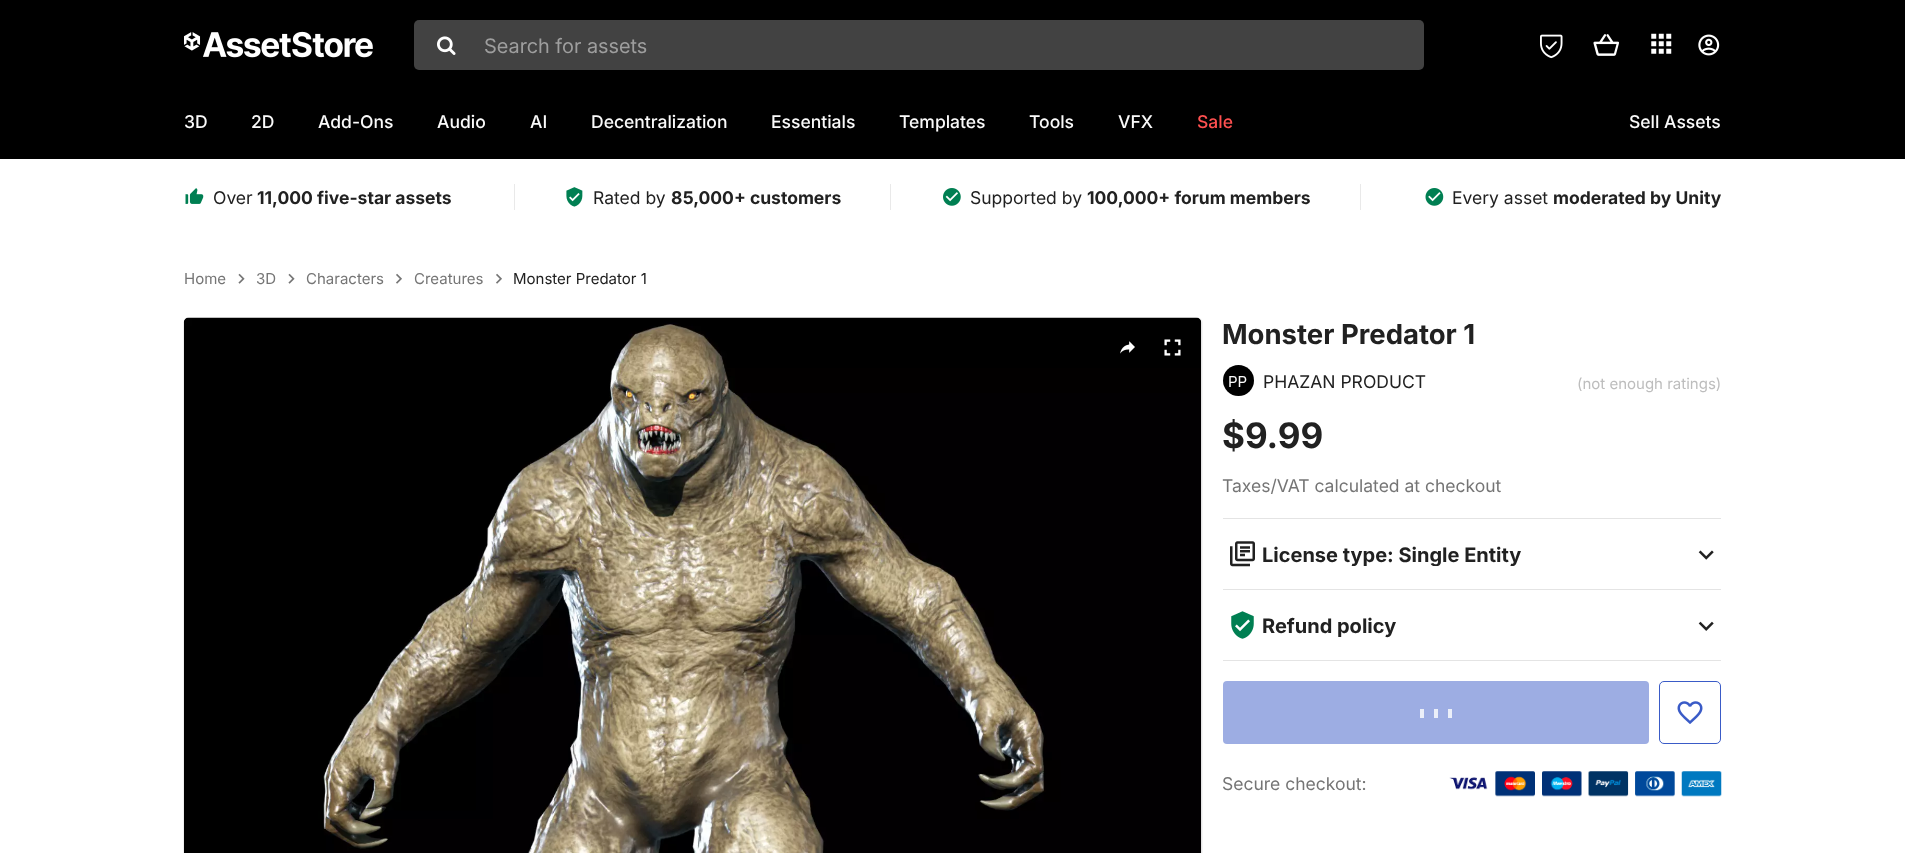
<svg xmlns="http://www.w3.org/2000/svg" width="1905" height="853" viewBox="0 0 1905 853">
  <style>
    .t1 { font: 20px 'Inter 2'; fill: #9e9e9e; }
    .t2 { font: 500 17.5px Inter; fill: #fafafa; }
    .t3 { font: 500 17.5px Inter; fill: #ff5050; }
    .t4 { font: 17.5px Inter; fill: #212121; }
    .t5 { font: bold 17.5px Inter; fill: #212121; }
    .t6 { font: 15px Inter; fill: #757575; }
    .t7 { font: 15px Inter; fill: #212121; }
    .t8 { font: bold 27.5px Inter; fill: #212121; }
    .t9 { font: 15px Inter; fill: #fafafa; }
    .t10 { font: 15px Inter; fill: #bdbdbd; }
    .t11 { font: bold 35px Inter; fill: #212121; }
    .t12 { font: 17.5px Inter; fill: #757575; }
    .t13 { font: bold 20px Inter; fill: #212121; }
  </style>
  <defs>
    <clipPath id="clip1"><rect x="1263" y="541" width="428" height="25"/></clipPath>
  </defs>
  <rect width="100%" height="100%" fill="#fff"/>
  <rect x="0" y="0" width="1905" height="159" fill="#000"/>
  <image x="184" y="31" width="189" height="27" href="images/1.png"/>
  <rect x="414" y="20" width="1010" height="50" rx="5" fill="#424242"/>
  <image x="437" y="36" width="19" height="19" href="images/2.png"/>
  <text x="484" y="53" class="t1">Search for assets</text>
  <image x="1540" y="34" width="23" height="25" href="images/3.png"/>
  <image x="1593" y="34" width="26" height="22" href="images/4.png"/>
  <image x="1651" y="33" width="21" height="21" href="images/5.png"/>
  <image x="1698" y="34" width="22" height="22" href="images/6.png"/>
  <text x="184" y="128" class="t2">3D</text>
  <text x="251" y="128" class="t2">2D</text>
  <text x="318" y="128" class="t2">Add-Ons</text>
  <text x="437" y="128" class="t2">Audio</text>
  <text x="530" y="128" class="t2">AI</text>
  <text x="591" y="128" class="t2">Decentralization</text>
  <text x="771" y="128" class="t2">Essentials</text>
  <text x="899" y="128" class="t2">Templates</text>
  <text x="1029" y="128" class="t2">Tools</text>
  <text x="1118" y="128" class="t2">VFX</text>
  <text x="1197" y="128" class="t3">Sale</text>
  <text x="1629" y="128" class="t2">Sell Assets</text>
  <image x="185" y="188" width="19" height="16" href="images/7.png"/>
  <text x="213" y="204" class="t4">Over</text>
  <text x="257" y="204" class="t5">11,000 five-star assets</text>
  <rect x="890" y="184" width="1" height="26" fill="#e9e9e9"/>
  <rect x="514" y="184" width="1" height="26" fill="#e9e9e9"/>
  <image x="566" y="187" width="17" height="20" href="images/8.png"/>
  <text x="593" y="204" class="t4">Rated by</text>
  <text x="671" y="204" class="t5">85,000+ customers</text>
  <rect x="1360" y="184" width="1" height="26" fill="#e9e9e9"/>
  <image x="943" y="188" width="18" height="18" href="images/9.png"/>
  <text x="970" y="204" class="t4">Supported by</text>
  <text x="1087" y="204" class="t5">100,000+ forum members</text>
  <image x="1425" y="188" width="19" height="18" href="images/10.png"/>
  <text x="1452" y="204" class="t4">Every asset</text>
  <text x="1553" y="204" class="t5">moderated by Unity</text>
  <text x="184" y="284" class="t6">Home</text>
  <image x="238" y="273" width="7" height="11" href="images/11.png"/>
  <text x="256" y="284" class="t6">3D</text>
  <image x="288" y="273" width="7" height="11" href="images/11.png"/>
  <text x="306" y="284" class="t6">Characters</text>
  <image x="396" y="273" width="6" height="11" href="images/12.png"/>
  <text x="414" y="284" class="t6">Creatures</text>
  <image x="496" y="273" width="6" height="11" href="images/12.png"/>
  <text x="513" y="284" class="t7">Monster Predator 1</text>
  <path d="M189 318H1198C1201 318 1203 320 1203 323V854H184V323C184 320 186 318 189 318Z" fill="#f5f5f5"/>
  <image x="183" y="317" width="1019" height="536" href="images/13.png"/>
  <image x="1120" y="341" width="15" height="13" href="images/14.png"/>
  <image x="1164" y="339" width="17" height="17" href="images/15.png"/>
  <text x="1222" y="344" class="t8">Monster Predator 1</text>
  <circle cx="1238.5" cy="380.5" r="15.5" fill="#000"/>
  <text x="1228" y="387" class="t9">PP</text>
  <text x="1263" y="388" class="t4">PHAZAN PRODUCT</text>
  <text x="1577" y="389" class="t10">(not enough ratings)</text>
  <text x="1222" y="448" class="t11">$9.99</text>
  <text x="1222" y="492" class="t12">Taxes/VAT calculated at checkout</text>
  <rect x="1223" y="518" width="498" height="1" fill="#e4e4e4"/>
  <image x="1230" y="541" width="25" height="26" href="images/16.png"/>
  <g clip-path="url(#clip1)">
    <text x="1262" y="562" class="t13">License type: Single Entity</text>
  </g>
  <image x="1698" y="550" width="16" height="10" href="images/17.png"/>
  <rect x="1223" y="589" width="498" height="1" fill="#e4e4e4"/>
  <rect x="1223" y="660" width="498" height="1" fill="#e4e4e4"/>
  <image x="1231" y="611" width="23" height="28" href="images/18.png"/>
  <text x="1262" y="633" class="t13">Refund policy</text>
  <image x="1698" y="621" width="16" height="10" href="images/19.png"/>
  <rect x="1223" y="681" width="426" height="63" rx="4" fill="#9dade3"/>
  <rect x="1420" y="709" width="4" height="9" fill="#ebeff9"/>
  <rect x="1434" y="709" width="4" height="9" fill="#ebeff9"/>
  <rect x="1448" y="709" width="4" height="9" fill="#ebeff9"/>
  <rect x="1659.5" y="681.5" width="61" height="62" rx="4.5" fill="none" stroke="#3a5bc7"/>
  <image x="1677" y="701" width="26" height="23" href="images/20.png"/>
  <text x="1222" y="790" class="t12">Secure checkout:</text>
  <image x="1449" y="771" width="273" height="26" href="images/21.png"/>
</svg>
